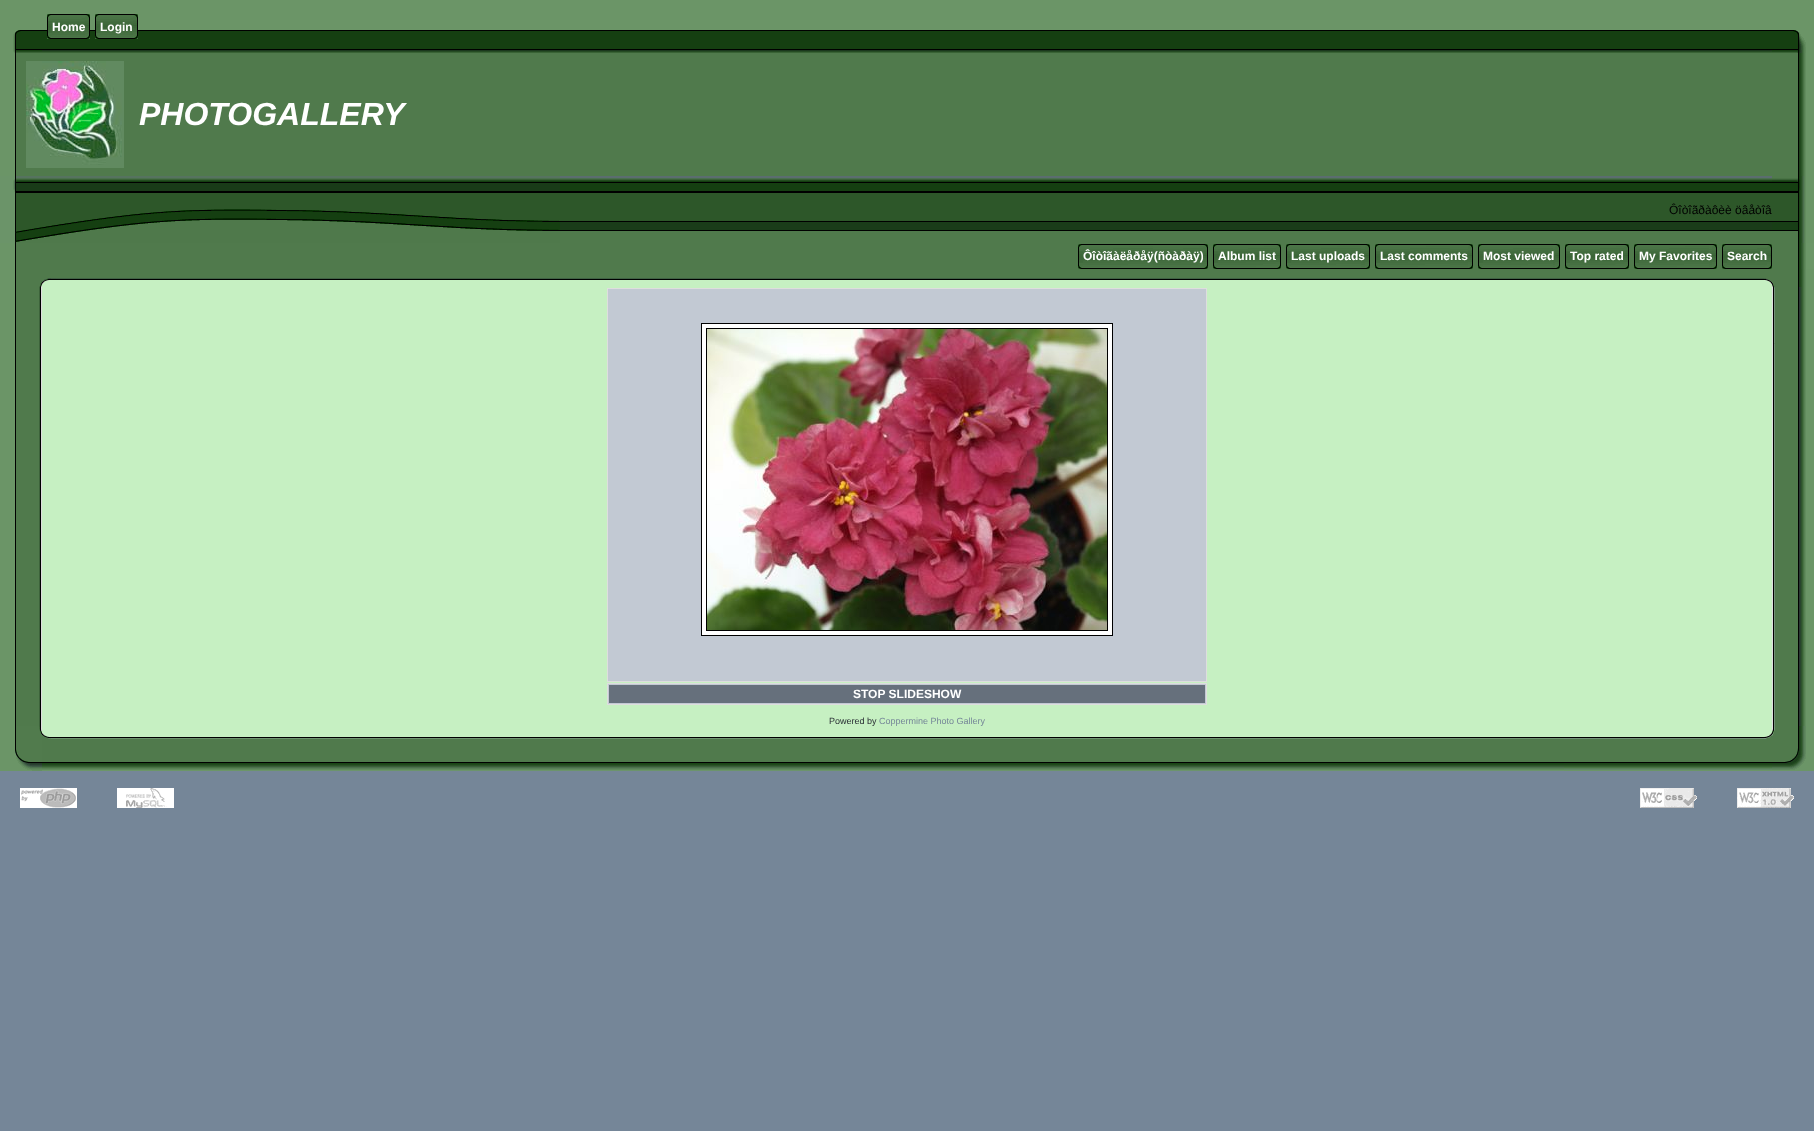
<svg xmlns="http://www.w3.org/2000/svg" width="1814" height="1131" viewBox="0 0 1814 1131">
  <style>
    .t1 { font: bold 12px Liberation Sans; fill: #fff; }
    .t2 { font: italic bold 32px Liberation Sans; fill: #fff; }
    .t3 { font: 12px Liberation Sans; fill: #000; }
    .t4 { font: 9px Liberation Sans; fill: #292e34; }
    .t5 { font: 9px Liberation Sans; fill: #758698; }
  </style>
  <rect width="100%" height="100%" fill="#758698"/>
  <image x="0" y="0" width="42" height="53" href="images/1.png"/>
  <image x="42" y="0" width="1730" height="53" href="images/2.png"/>
  <image x="47" y="14" width="5" height="25" href="images/3.png"/>
  <image x="52" y="14" width="33" height="25" href="images/4.png"/>
  <text x="52" y="31" class="t1">Home</text>
  <image x="85" y="14" width="5" height="25" href="images/5.png"/>
  <image x="95" y="14" width="5" height="25" href="images/3.png"/>
  <image x="100" y="14" width="33" height="25" href="images/6.png"/>
  <text x="100" y="31" class="t1">Login</text>
  <image x="133" y="14" width="5" height="25" href="images/5.png"/>
  <image x="1772" y="0" width="42" height="53" href="images/7.png"/>
  <image x="0" y="53" width="18" height="123" href="images/8.png"/>
  <rect x="18" y="53" width="1780" height="123" fill="#507a4c"/>
  <image x="26" y="61" width="98" height="107" href="images/9.png"/>
  <text x="139" y="125" class="t2">PHOTOGALLERY</text>
  <image x="1798" y="53" width="16" height="123" href="images/10.png"/>
  <image x="0" y="176" width="560" height="67" href="images/11.png"/>
  <image x="560" y="176" width="1212" height="67" href="images/12.png"/>
  <text x="1669" y="214" class="t3">Ôîòîãðàôèè öâåòîâ</text>
  <image x="1772" y="176" width="42" height="67" href="images/13.png"/>
  <image x="0" y="243" width="42" height="26" href="images/14.png"/>
  <rect x="42" y="243" width="1730" height="26" fill="#507a4c"/>
  <image x="1078" y="244" width="5" height="25" href="images/3.png"/>
  <image x="1083" y="244" width="120" height="25" href="images/15.png"/>
  <text x="1083" y="260" class="t1">Ôîòîãàëåðåÿ(ñòàðàÿ)</text>
  <image x="1203" y="244" width="5" height="25" href="images/5.png"/>
  <image x="1213" y="244" width="5" height="25" href="images/3.png"/>
  <image x="1218" y="244" width="58" height="25" href="images/16.png"/>
  <text x="1218" y="260" class="t1">Album list</text>
  <image x="1276" y="244" width="5" height="25" href="images/5.png"/>
  <image x="1286" y="244" width="5" height="25" href="images/3.png"/>
  <image x="1291" y="244" width="74" height="25" href="images/17.png"/>
  <text x="1291" y="260" class="t1">Last uploads</text>
  <image x="1365" y="244" width="5" height="25" href="images/5.png"/>
  <image x="1375" y="244" width="5" height="25" href="images/3.png"/>
  <image x="1380" y="244" width="88" height="25" href="images/18.png"/>
  <text x="1380" y="260" class="t1">Last comments</text>
  <image x="1468" y="244" width="5" height="25" href="images/5.png"/>
  <image x="1478" y="244" width="5" height="25" href="images/3.png"/>
  <image x="1483" y="244" width="72" height="25" href="images/19.png"/>
  <text x="1483" y="260" class="t1">Most viewed</text>
  <image x="1555" y="244" width="5" height="25" href="images/5.png"/>
  <image x="1565" y="244" width="5" height="25" href="images/3.png"/>
  <image x="1570" y="244" width="54" height="25" href="images/20.png"/>
  <text x="1570" y="260" class="t1">Top rated</text>
  <image x="1624" y="244" width="5" height="25" href="images/5.png"/>
  <image x="1634" y="244" width="5" height="25" href="images/3.png"/>
  <image x="1639" y="244" width="73" height="25" href="images/21.png"/>
  <text x="1639" y="260" class="t1">My Favorites</text>
  <image x="1712" y="244" width="5" height="25" href="images/5.png"/>
  <image x="1722" y="244" width="5" height="25" href="images/3.png"/>
  <image x="1727" y="244" width="40" height="25" href="images/22.png"/>
  <text x="1727" y="260" class="t1">Search</text>
  <image x="1767" y="244" width="5" height="25" href="images/5.png"/>
  <image x="1772" y="243" width="42" height="26" href="images/23.png"/>
  <image x="0" y="269" width="42" height="18" href="images/24.png"/>
  <image x="42" y="269" width="14" height="18" href="images/25.png"/>
  <image x="56" y="269" width="1702" height="18" href="images/26.png"/>
  <image x="1758" y="269" width="14" height="18" href="images/27.png"/>
  <image x="1772" y="269" width="42" height="18" href="images/28.png"/>
  <image x="0" y="287" width="42" height="439" href="images/29.png"/>
  <rect x="42" y="287" width="1730" height="439" fill="#c6f0c2"/>
  <rect x="607.5" y="288.5" width="599" height="393" fill="#c2c9d3" stroke="#dedede"/>
  <rect x="701.5" y="323.5" width="411" height="312" fill="#fff" stroke="#000"/>
  <rect x="706.5" y="328.5" width="401" height="302" fill="none" stroke="#000"/>
  <image x="707" y="329" width="400" height="301" href="images/30.png"/>
  <rect x="607.5" y="683.5" width="599" height="21" fill="#c2c9d3" stroke="#dedede"/>
  <rect x="609" y="685" width="596" height="18" fill="#66707c"/>
  <text x="853" y="698" class="t1">STOP SLIDESHOW</text>
  <text x="829" y="724" class="t4">Powered by</text>
  <text x="879" y="724" class="t5">Coppermine Photo Gallery</text>
  <image x="1772" y="287" width="42" height="439" href="images/31.png"/>
  <image x="1774" y="343" width="1" height="273" href="images/32.png"/>
  <image x="0" y="726" width="42" height="45" href="images/33.png"/>
  <image x="42" y="726" width="208" height="45" href="images/34.png"/>
  <image x="250" y="726" width="1314" height="45" href="images/35.png"/>
  <image x="1564" y="726" width="208" height="45" href="images/36.png"/>
  <image x="1772" y="726" width="42" height="45" href="images/37.png"/>
  <image x="20" y="788" width="57" height="20" href="images/38.png"/>
  <image x="117" y="788" width="57" height="20" href="images/39.png"/>
  <image x="1640" y="788" width="57" height="20" href="images/40.png"/>
  <image x="1737" y="788" width="57" height="20" href="images/41.png"/>
</svg>
